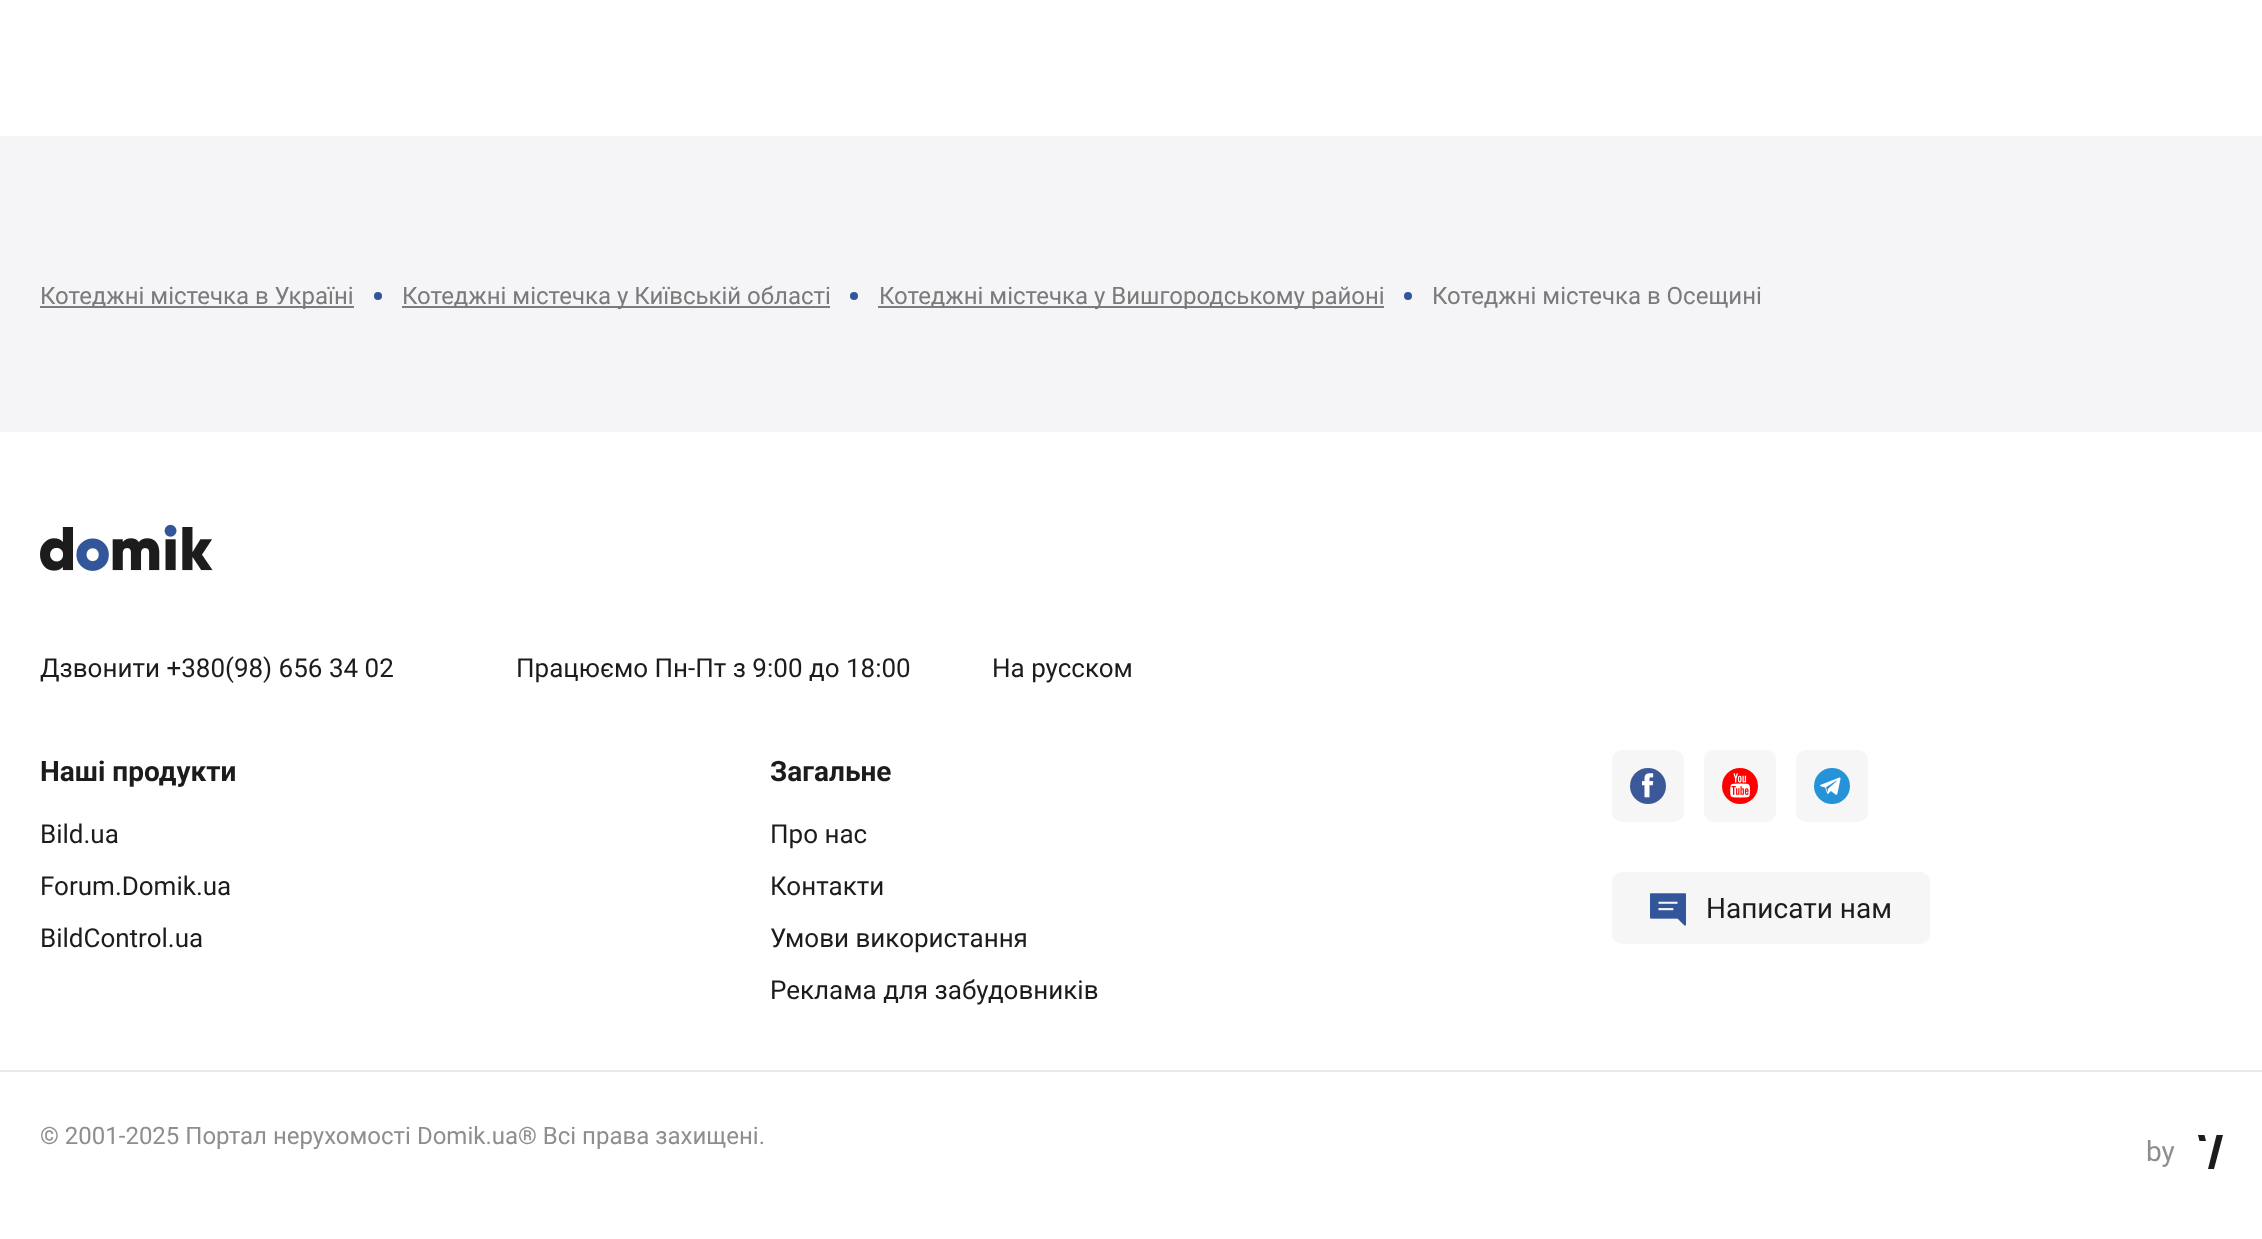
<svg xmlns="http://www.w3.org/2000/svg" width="2262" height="1239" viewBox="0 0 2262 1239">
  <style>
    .t1 { font: 24px Roboto; fill: #7a7a7b; }
    .t2 { font: 26px Roboto; fill: #1c1c1c; }
    .t3 { font: bold 28px Roboto; fill: #1c1c1c; }
    .t4 { font: 28px Roboto; fill: #1c1c1c; }
    .t5 { font: 24px Roboto; fill: #8e8e8e; }
    .t6 { font: 28px Roboto; fill: #8e8e8e; }
  </style>
  <rect width="100%" height="100%" fill="#f5f5f7"/>
  <rect x="0" y="0" width="2262" height="136" fill="#fff"/>
  <rect x="40" y="306" width="314" height="2" fill="#7b7b7c"/>
  <text x="40" y="304" class="t1">Котеджні містечка в Україні</text>
  <circle cx="378" cy="296" r="4" fill="#359"/>
  <rect x="402" y="306" width="428" height="2" fill="#7b7b7c"/>
  <text x="402" y="304" class="t1">Котеджні містечка у Київській області</text>
  <circle cx="854" cy="296" r="4" fill="#359"/>
  <rect x="878" y="306" width="506" height="2" fill="#7b7b7c"/>
  <text x="879" y="304" class="t1">Котеджні містечка у Вишгородському районі</text>
  <circle cx="1408" cy="296" r="4" fill="#359"/>
  <text x="1432" y="304" class="t1">Котеджні містечка в Осещині</text>
  <rect x="0" y="432" width="2262" height="807" fill="#fff"/>
  <image x="40" y="527" width="173" height="44" href="images/2.png"/>
  <image x="164" y="524" width="13" height="13" href="images/1.png"/>
  <image x="76" y="538" width="33" height="33" href="images/3.png"/>
  <text x="40" y="677" class="t2">Дзвонити +380(98) 656 34 02</text>
  <text x="516" y="677" class="t2">Працюємо Пн-Пт з 9:00 до 18:00</text>
  <text x="992" y="677" class="t2">На русском</text>
  <text x="40" y="781" class="t3">Наші продукти</text>
  <text x="40" y="843" class="t2">Bild.ua</text>
  <text x="40" y="895" class="t2">Forum.Domik.ua</text>
  <text x="40" y="947" class="t2">BildControl.ua</text>
  <text x="770" y="781" class="t3">Загальне</text>
  <text x="770" y="843" class="t2">Про нас</text>
  <text x="770" y="895" class="t2">Контакти</text>
  <text x="770" y="947" class="t2">Умови використання</text>
  <text x="770" y="999" class="t2">Реклама для забудовників</text>
  <rect x="1612" y="750" width="72" height="72" rx="10" fill="#f6f6f6"/>
  <circle cx="1648" cy="786" r="18" fill="#3b5998"/>
  <image x="1642" y="773" width="12" height="25" href="images/4.png"/>
  <rect x="1704" y="750" width="72" height="72" rx="10" fill="#f6f6f6"/>
  <circle cx="1740" cy="786" r="18" fill="#f00"/>
  <image x="1730" y="773" width="20" height="25" href="images/5.png"/>
  <rect x="1796" y="750" width="72" height="72" rx="10" fill="#f6f6f6"/>
  <circle cx="1832" cy="786" r="18" fill="#2693d8"/>
  <image x="1820" y="777" width="21" height="18" href="images/6.png"/>
  <rect x="1612" y="872" width="318" height="72" rx="10" fill="#f6f6f6"/>
  <image x="1650" y="893" width="36" height="33" href="images/7.png"/>
  <text x="1706" y="918" class="t4">Написати нам</text>
  <rect x="0" y="1070" width="2262" height="2" fill="#e8e8e8"/>
  <text x="40" y="1144" class="t5">© 2001-2025 Портал нерухомості Domik.ua® Всі права захищені.</text>
  <text x="2146" y="1161" class="t6">by</text>
  <path d="M2198 1135L2199.5 1141H2206L2204.5 1135ZM2216.5 1135L2208 1169H2214L2223 1135Z" fill="#1c1c1c"/>
</svg>
